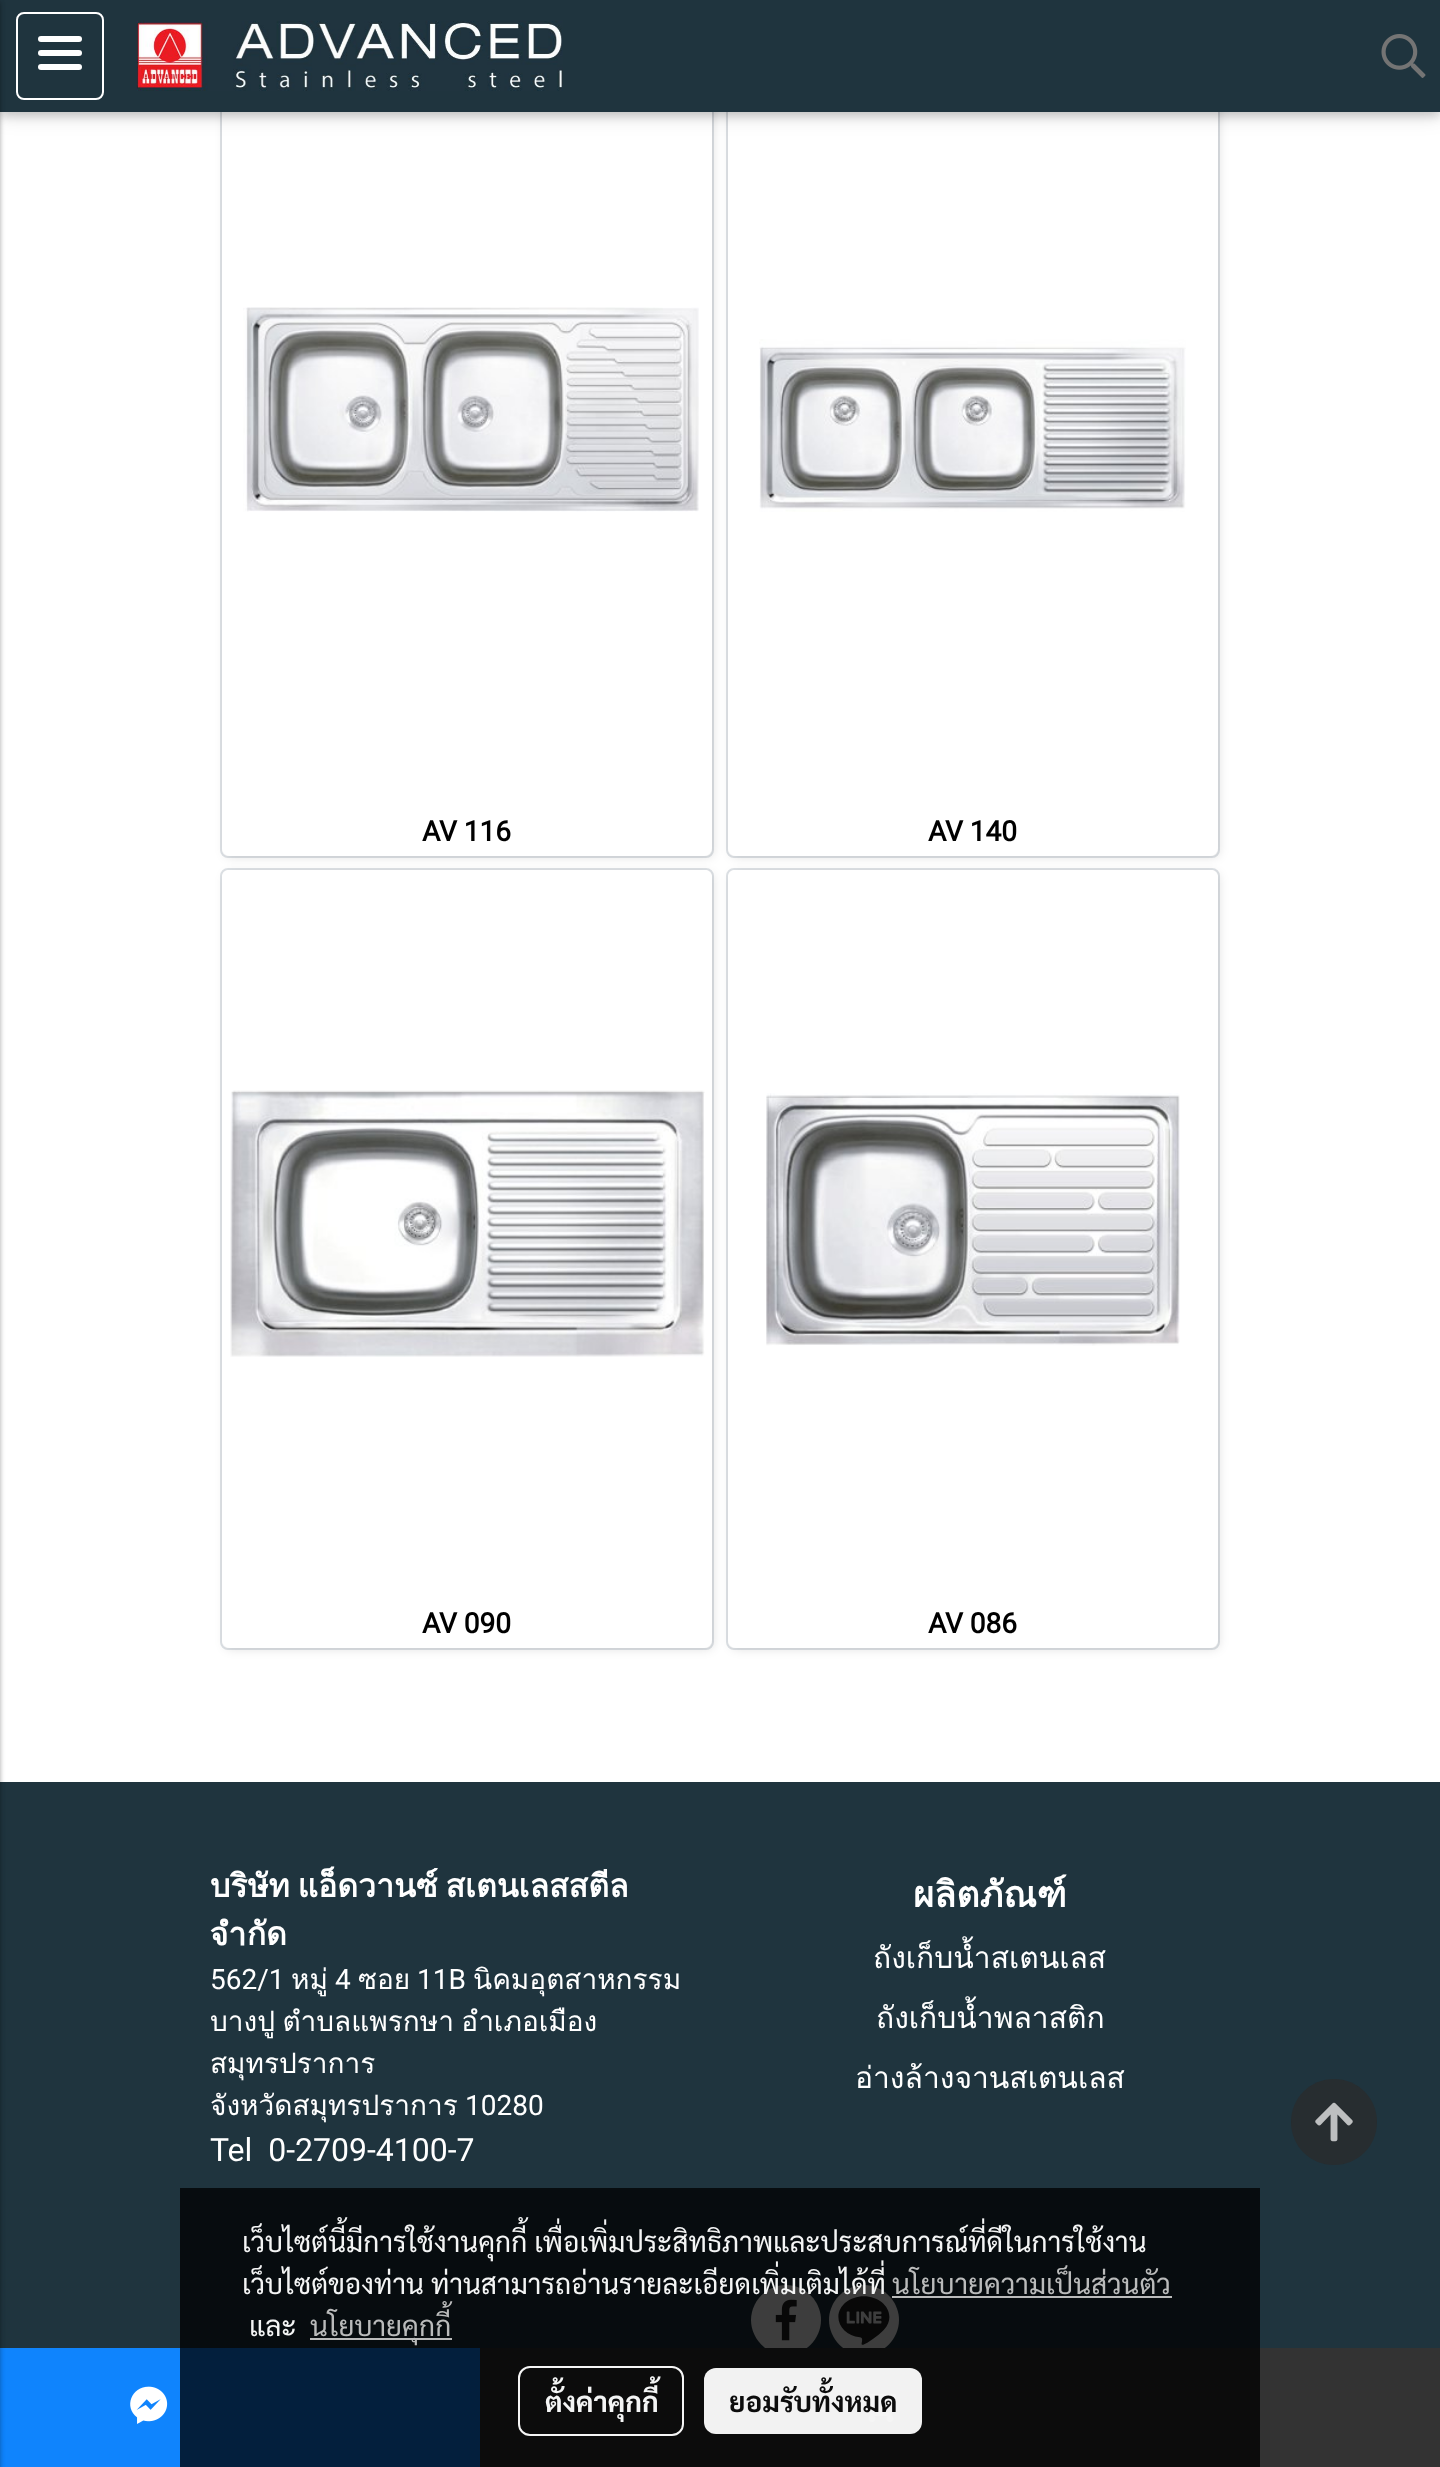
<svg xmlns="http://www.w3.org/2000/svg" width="1440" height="2467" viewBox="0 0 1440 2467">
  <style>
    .t1 { font: bold 28px Roboto; fill: #000; }
    .t2 { font: bold 32px Loma; fill: #fff; }
    .t3 { font: 28px Roboto; fill: #fff; }
    .t4 { font: 28px Loma; fill: #fff; }
    .t5 { font: 32px Roboto; fill: #fff; }
    .t6 { font: bold 36px Loma; fill: #fff; }
    .t7 { font: 30px Loma; fill: #fff; }
    .t8 { font: 28px Sarabun; fill: #f4f5f5; }
    .t9 { font: 28px Sarabun; fill: #babbbb; }
    .t10 { font: bold 28px Sarabun; fill: #f4f5f5; }
    .t11 { font: bold 28px Sarabun; fill: #0c0c0c; }
  </style>
  <rect width="100%" height="100%" fill="#fff"/>
  <rect x="221" y="77" width="492" height="780" rx="7" fill="none" stroke="#dee2e6" stroke-width="2"/>
  <rect x="224" y="80" width="490" height="778" rx="8" fill="#0000001a" filter="blur(5px)"/>
  <rect x="222" y="78" width="490" height="778" rx="8" fill="#fff"/>
  <rect x="727" y="77" width="492" height="780" rx="7" fill="none" stroke="#dee2e6" stroke-width="2"/>
  <rect x="730" y="80" width="490" height="778" rx="8" fill="#0000001a" filter="blur(5px)"/>
  <rect x="728" y="78" width="490" height="778" rx="8" fill="#fff"/>
  <rect x="0" y="4" width="1440" height="112" fill="#0000001f" filter="blur(10px)"/>
  <rect x="0" y="4" width="1440" height="112" fill="#00000029" filter="blur(5px)"/>
  <rect x="0" y="0" width="1440" height="112" fill="#1f343e"/>
  <rect x="0" y="2348" width="480" height="119" fill="#0f84fd"/>
  <rect x="0" y="1782" width="1440" height="566" fill="#1f343e"/>
  <rect x="-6" y="2" width="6" height="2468" fill="#0000003d" filter="blur(2px)"/>
  <rect x="-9" y="2" width="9" height="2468" fill="#0000001f" filter="blur(3px)"/>
  <rect x="17" y="13" width="86" height="86" rx="7" fill="none" stroke="#fff" stroke-width="2"/>
  <rect x="38" y="50" width="44" height="6" rx="3" fill="#fff"/>
  <rect x="38" y="36" width="44" height="6" rx="3" fill="#fff"/>
  <rect x="38" y="64" width="44" height="6" rx="3" fill="#fff"/>
  <image x="136" y="20" width="427" height="71" href="images/1.png"/>
  <image x="1381" y="34" width="45" height="44" href="images/2.png"/>
  <image x="243" y="307" width="456" height="205" href="images/3.png"/>
  <text x="422" y="841" class="t1">AV 116</text>
  <image x="759" y="339" width="427" height="173" href="images/4.png"/>
  <text x="928" y="841" class="t1">AV 140</text>
  <rect x="221" y="869" width="492" height="780" rx="7" fill="none" stroke="#dee2e6" stroke-width="2"/>
  <rect x="224" y="872" width="490" height="778" rx="8" fill="#0000001a" filter="blur(5px)"/>
  <rect x="222" y="870" width="490" height="778" rx="8" fill="#fff"/>
  <path d="M230 870H704C708.5 870 712 873.5 712 878V1574H222V878C222 873.5 225.5 870 230 870Z" fill="#fff"/>
  <image x="230" y="1090" width="475" height="267" href="images/5.png"/>
  <text x="422" y="1633" class="t1">AV 090</text>
  <rect x="727" y="869" width="492" height="780" rx="7" fill="none" stroke="#dee2e6" stroke-width="2"/>
  <rect x="730" y="872" width="490" height="778" rx="8" fill="#0000001a" filter="blur(5px)"/>
  <rect x="728" y="870" width="490" height="778" rx="8" fill="#fff"/>
  <path d="M736 870H1210C1214.5 870 1218 873.5 1218 878V1574H728V878C728 873.5 731.5 870 736 870Z" fill="#fff"/>
  <image x="766" y="1093" width="414" height="253" href="images/6.png"/>
  <text x="928" y="1633" class="t1">AV 086</text>
  <image x="130" y="2386" width="38" height="38" href="images/7.png"/>
  <path d="M786 2285C767 2285 751 2301 751 2320C751 2339 767 2355 786 2355C805 2355 821 2339 821 2320C821 2301 805 2285 786 2285Z" fill="#fff"/>
  <path d="M864 2285C845 2285 829 2301 829 2320C829 2339 845 2355 864 2355C883 2355 899 2339 899 2320C899 2301 883 2285 864 2285Z" fill="#fff"/>
  <rect x="480" y="2348" width="960" height="119" fill="#333"/>
  <image x="860" y="2390" width="36" height="32" href="images/8.png"/>
  <text x="210" y="1897" word-spacing="-3" class="t2">บริษัท แอ็ดวานซ์ สเตนเลสสตีล</text>
  <text x="210" y="1945" class="t2">จำกัด</text>
  <text x="210" y="1989" class="t3">562/1</text>
  <text x="291" y="1989" class="t4">หมู่</text>
  <text x="335" y="1989" class="t3">4</text>
  <text x="358" y="1989" class="t4">ซอย</text>
  <text x="417" y="1989" class="t3">11B</text>
  <text x="473" y="1989" class="t4">นิคมอุตสาหกรรม</text>
  <text x="210" y="2031" word-spacing="-2" class="t4">บางปู ตำบลแพรกษา อำเภอเมือง</text>
  <text x="210" y="2073" class="t4">สมุทรปราการ</text>
  <text x="210" y="2115" class="t4">จังหวัดสมุทรปราการ</text>
  <text x="465" y="2115" class="t3">10280</text>
  <text x="210" y="2161" class="t5" xml:space="preserve">Tel  0-2709-4100-7</text>
  <text x="913" y="1907" class="t6">ผลิตภัณฑ์</text>
  <text x="873" y="1968" class="t7">ถังเก็บน้ำสเตนเลส</text>
  <text x="876" y="2028" class="t7">ถังเก็บน้ำพลาสติก</text>
  <text x="855" y="2088" class="t7">อ่างล้างจานสเตนเลส</text>
  <image x="775" y="2299" width="22" height="42" href="images/9.png"/>
  <image x="838" y="2296" width="52" height="49" href="images/10.png"/>
  <path d="M1334 2079C1310 2079 1291 2098 1291 2122C1291 2146 1310 2165 1334 2165C1358 2165 1377 2146 1377 2122C1377 2098 1358 2079 1334 2079Z" fill="#272d30"/>
  <image x="1315" y="2102" width="38" height="40" href="images/11.png"/>
  <rect x="180" y="2188" width="1080" height="279" fill="#000000c2"/>
  <text x="242" y="2252" class="t8">เว็บไซต์นี้มีการใช้งานคุกกี้ เพื่อเพิ่มประสิทธิภาพและประสบการณ์ที่ดีในการใช้งาน</text>
  <text x="242" y="2294" class="t8">เว็บไซต์ของท่าน</text>
  <text x="431" y="2294" class="t8">ท่านสามารถอ่านรายละเอียดเพิ่มเติมได้ที่</text>
  <text x="892" y="2294" class="t9">นโยบายความเป็นส่วนตัว</text>
  <rect x="892" y="2296" width="280" height="2" fill="#babbbb"/>
  <text x="249" y="2336" class="t8">และ</text>
  <rect x="310" y="2338" width="142" height="2" fill="#babbbb"/>
  <text x="310" y="2336" class="t9">นโยบายคุกกี้</text>
  <rect x="519" y="2367" width="164" height="68" rx="11" fill="none" stroke="#f5f5f5" stroke-width="2"/>
  <text x="545" y="2412" class="t10">ตั้งค่าคุกกี้</text>
  <rect x="704" y="2368" width="218" height="66" rx="12" fill="#fffffff2"/>
  <text x="729" y="2412" class="t11">ยอมรับทั้งหมด</text>
</svg>
